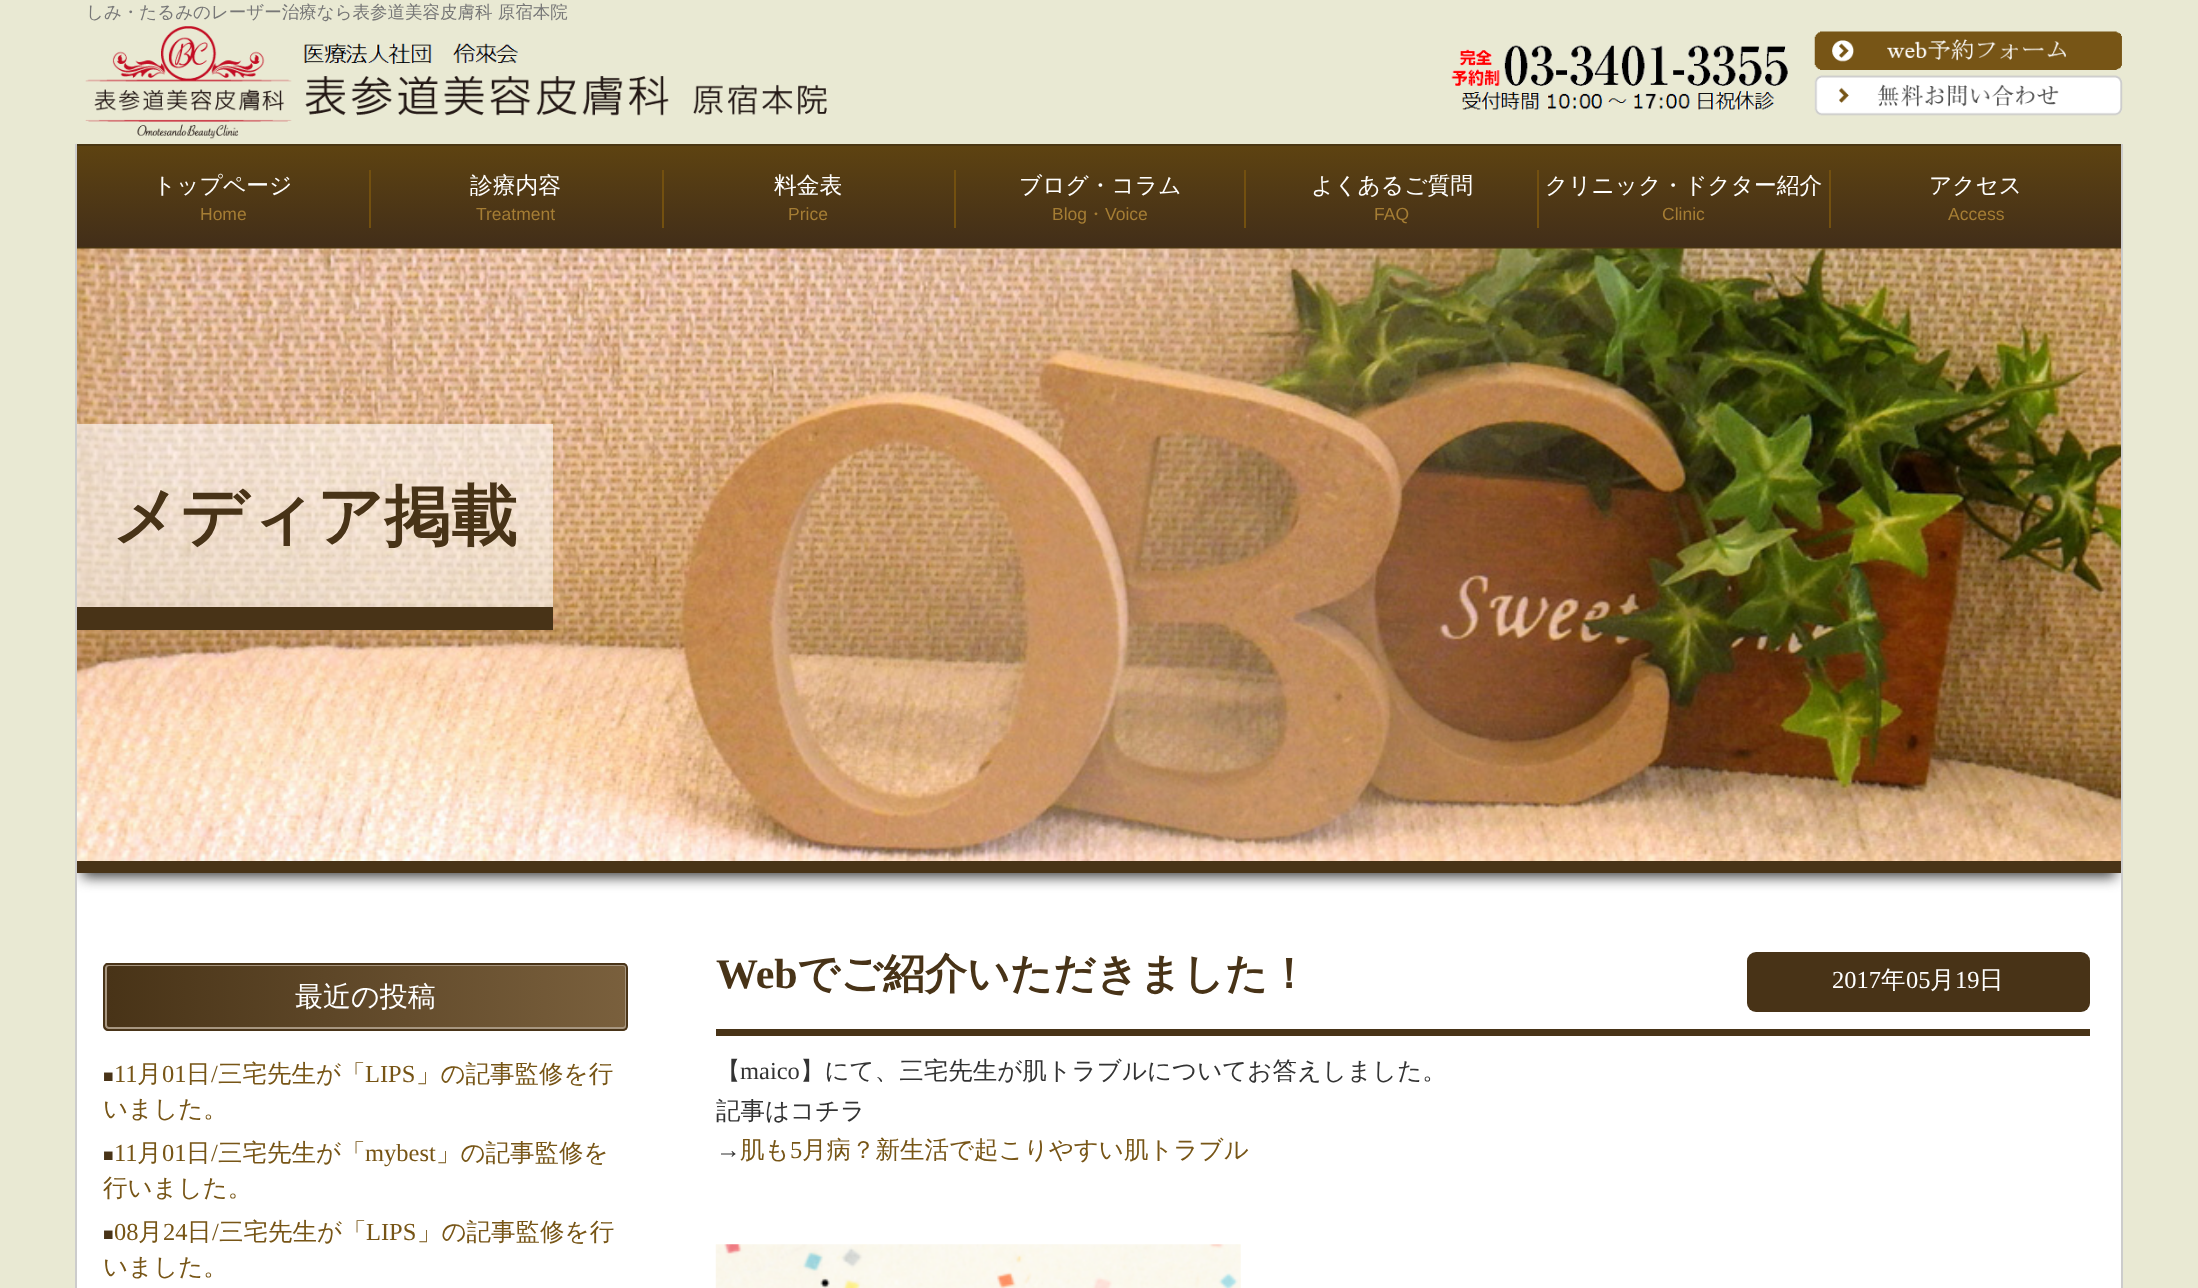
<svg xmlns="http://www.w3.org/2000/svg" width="2198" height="1288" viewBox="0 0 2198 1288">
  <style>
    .t1 { font: 500 17.5px WenQuanYi Zen Hei; fill: #777; }
    .t2 { font: 500 22.75px WenQuanYi Zen Hei; fill: #fff; }
    .t3 { font: 17.5px Liberation Sans; fill: #a57d34; }
    .t4 { font: 500 17.5px WenQuanYi Zen Hei; fill: #a57d34; }
    .t5 { font: bold 66.5px WenQuanYi Zen Hei; fill: #483317; }
    .t6 { font: 500 28px WenQuanYi Zen Hei; fill: #fff; }
    .t7 { font: 17.5px Liberation Serif; fill: #483317; }
    .t8 { font: 24.5px Liberation Serif; fill: #775516; }
    .t9 { font: 500 24.5px WenQuanYi Zen Hei; fill: #775516; }
    .t10 { font: bold 42px Liberation Serif; fill: #483317; }
    .t11 { font: bold 42px WenQuanYi Zen Hei; fill: #483317; }
    .t12 { font: 24.5px Liberation Serif; fill: #fff; }
    .t13 { font: 500 24.5px WenQuanYi Zen Hei; fill: #fff; }
    .t14 { font: 500 24.5px WenQuanYi Zen Hei; fill: #333; }
    .t15 { font: 24.5px Liberation Serif; fill: #333; }
  </style>
  <defs>
    <linearGradient id="g1" gradientUnits="userSpaceOnUse" x1="1099" y1="145" x2="1099" y2="247"><stop offset="0" stop-color="#5e4311"/><stop offset="1" stop-color="#422e19"/></linearGradient>
    <clipPath id="clip1"><rect x="77" y="144" width="2044" height="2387"/></clipPath>
    <clipPath id="clip2"><rect x="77" y="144" width="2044" height="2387"/></clipPath>
    <clipPath id="clip3"><rect x="103" y="963" width="525" height="68" rx="5"/></clipPath>
    <linearGradient id="g2" gradientUnits="userSpaceOnUse" x1="105" y1="997" x2="627" y2="997"><stop offset="0" stop-color="#483317"/><stop offset="1" stop-color="#7a603d"/></linearGradient>
  </defs>
  <rect width="100%" height="100%" fill="#e9e9d3"/>
  <text x="86" y="18" class="t1">しみ・たるみのレーザー治療なら表参道美容皮膚科 原宿本院</text>
  <image x="85" y="26" width="742" height="113" href="images/1.png"/>
  <image x="1451" y="45" width="337" height="65" href="images/2.png"/>
  <image x="1814" y="31" width="308" height="39" href="images/3.png"/>
  <image x="1814" y="75" width="309" height="41" href="images/4.png"/>
  <rect x="77" y="873" width="2044" height="415" fill="#fff"/>
  <rect x="2121" y="144" width="2" height="1144" fill="#ccc"/>
  <rect x="75" y="144" width="2" height="1144" fill="#ccc"/>
  <rect x="77" y="146" width="2044" height="101" fill="url(#g1)"/>
  <g clip-path="url(#clip1)">
    <rect x="76" y="145" width="2046" height="103" fill="none" stroke="#4a3612" stroke-width="2"/>
  </g>
  <text x="153" y="193" class="t2">トップページ</text>
  <text x="200" y="220" class="t3">Home</text>
  <rect x="369" y="170" width="2" height="58" fill="#73500f"/>
  <text x="470" y="193" class="t2">診療内容</text>
  <text x="476" y="220" class="t3">Treatment</text>
  <rect x="662" y="170" width="2" height="58" fill="#73500f"/>
  <text x="774" y="193" class="t2">料金表</text>
  <text x="788" y="220" class="t3">Price</text>
  <rect x="954" y="170" width="2" height="58" fill="#73500f"/>
  <text x="1019" y="193" class="t2">ブログ・コラム</text>
  <text x="1052" y="220" class="t3">Blog</text>
  <text x="1087" y="220" class="t4">・</text>
  <text x="1105" y="220" class="t3">Voice</text>
  <rect x="1244" y="170" width="2" height="58" fill="#73500f"/>
  <text x="1311" y="193" class="t2">よくあるご質問</text>
  <text x="1374" y="220" class="t3">FAQ</text>
  <rect x="1537" y="170" width="2" height="58" fill="#73500f"/>
  <text x="1545" y="193" class="t2">クリニック・ドクター紹介</text>
  <text x="1662" y="220" class="t3">Clinic</text>
  <rect x="1829" y="170" width="2" height="58" fill="#73500f"/>
  <text x="1929" y="193" class="t2">アクセス</text>
  <text x="1948" y="220" class="t3">Access</text>
  <g clip-path="url(#clip2)">
    <rect x="82" y="263" width="2034" height="614" fill="#3e3e3e" filter="blur(7px)"/>
  </g>
  <rect x="77" y="861" width="2044" height="12" fill="#483317"/>
  <image x="77" y="248" width="2044" height="613" href="images/5.png"/>
  <rect x="77" y="424" width="476" height="183" fill="#ffffff99"/>
  <rect x="77" y="607" width="476" height="23" fill="#483317"/>
  <text x="112" y="539" class="t5">メディア掲載</text>
  <g clip-path="url(#clip3)">
    <rect x="105" y="963" width="522" height="68" fill="url(#g2)"/>
  </g>
  <rect x="106" y="965" width="520" height="63" rx="3" fill="none" stroke="#a79680" stroke-width="2"/>
  <rect x="104" y="964" width="523" height="66" rx="4" fill="none" stroke="#493418" stroke-width="2"/>
  <text x="295" y="1006" class="t6">最近の投稿</text>
  <text x="103" y="1082" class="t7">■</text>
  <text x="114" y="1082" class="t8">11</text>
  <text x="137" y="1082" class="t9">月</text>
  <text x="162" y="1082" class="t8">01</text>
  <text x="186" y="1082" class="t9">日</text>
  <text x="211" y="1082" class="t8">/</text>
  <text x="218" y="1082" class="t9">三宅先生が「</text>
  <text x="365" y="1082" class="t8">LIPS</text>
  <text x="416" y="1082" class="t9">」の記事監修を行</text>
  <text x="103" y="1117" class="t9">いました。</text>
  <text x="103" y="1161" class="t7">■</text>
  <text x="114" y="1161" class="t8">11</text>
  <text x="137" y="1161" class="t9">月</text>
  <text x="162" y="1161" class="t8">01</text>
  <text x="186" y="1161" class="t9">日</text>
  <text x="211" y="1161" class="t8">/</text>
  <text x="218" y="1161" class="t9">三宅先生が「</text>
  <text x="365" y="1161" class="t8">mybest</text>
  <text x="436" y="1161" class="t9">」の記事監修を</text>
  <text x="103" y="1196" class="t9">行いました。</text>
  <text x="103" y="1240" class="t7">■</text>
  <text x="114" y="1240" class="t8">08</text>
  <text x="138" y="1240" class="t9">月</text>
  <text x="163" y="1240" class="t8">24</text>
  <text x="187" y="1240" class="t9">日</text>
  <text x="212" y="1240" class="t8">/</text>
  <text x="219" y="1240" class="t9">三宅先生が「</text>
  <text x="366" y="1240" class="t8">LIPS</text>
  <text x="417" y="1240" class="t9">」の記事監修を行</text>
  <text x="103" y="1275" class="t9">いました。</text>
  <rect x="716" y="1029" width="1374" height="7" fill="#483317"/>
  <text x="716" y="988" class="t10">Web</text>
  <text x="797" y="988" class="t11">でご紹介いただきました！</text>
  <rect x="1747" y="952" width="343" height="60" rx="9" fill="#483317"/>
  <text x="1832" y="988" class="t12">2017</text>
  <text x="1881" y="988" class="t13">年</text>
  <text x="1906" y="988" class="t12">05</text>
  <text x="1930" y="988" class="t13">月</text>
  <text x="1955" y="988" class="t12">19</text>
  <text x="1979" y="988" class="t13">日</text>
  <text x="716" y="1079" class="t14">【</text>
  <text x="740" y="1079" class="t15">maico</text>
  <text x="800" y="1079" class="t14">】にて、三宅先生が肌トラブルについてお答えしました。</text>
  <text x="716" y="1119" class="t14">記事はコチラ</text>
  <text x="716" y="1158" class="t15">→</text>
  <text x="740" y="1158" class="t9">肌も</text>
  <text x="790" y="1158" class="t8">5</text>
  <text x="802" y="1158" class="t9">月病？新生活で起こりやすい肌トラブル</text>
  <image x="715" y="1244" width="526" height="44" href="images/6.png"/>
</svg>
